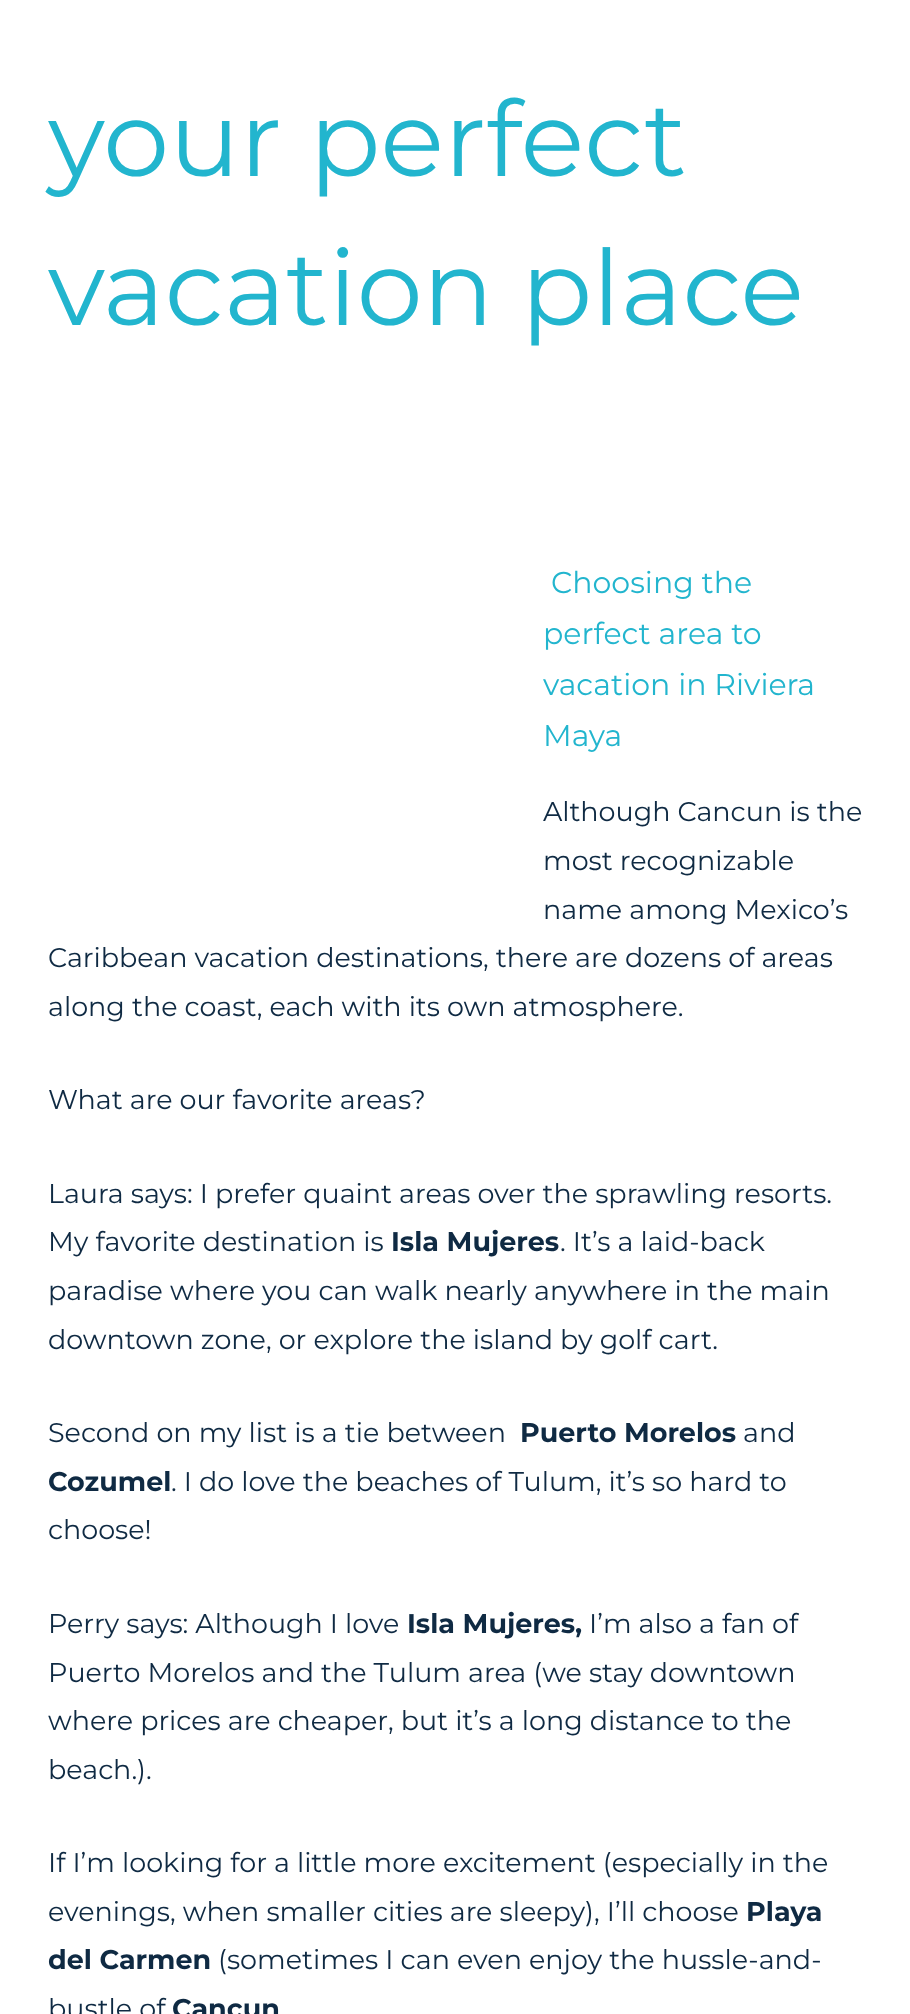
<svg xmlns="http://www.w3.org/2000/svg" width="910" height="2014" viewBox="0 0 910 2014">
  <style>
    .t1 { font: 105px Montserrat; fill: #22b5ce; }
    .t2 { font: 30px Montserrat; fill: #22b5ce; }
    .t3 { font: 27px Montserrat; fill: #0f2a43; }
    .t4 { font: bold 27px Montserrat; fill: #0f2a43; }
  </style>
  <rect width="100%" height="100%" fill="#fff"/>
  <text x="48" y="176" class="t1">your perfect</text>
  <text x="48" y="325" class="t1">vacation place</text>
  <text x="551" y="593" class="t2">Choosing the</text>
  <text x="543" y="644" class="t2">perfect area to</text>
  <text x="543" y="695" class="t2">vacation in Riviera</text>
  <text x="543" y="746" class="t2">Maya</text>
  <text x="543" y="821" class="t3">Although Cancun is the</text>
  <text x="543" y="870" class="t3">most recognizable</text>
  <text x="543" y="919" class="t3">name among Mexico’s</text>
  <text x="48" y="967" class="t3">Caribbean vacation destinations, there are dozens of areas</text>
  <text x="48" y="1016" class="t3">along the coast, each with its own atmosphere.</text>
  <text x="48" y="1109" class="t3">What are our favorite areas?</text>
  <text x="48" y="1203" class="t3">Laura says: I prefer quaint areas over the sprawling resorts.</text>
  <text x="48" y="1251" class="t3">My favorite destination is</text>
  <text x="391" y="1251" class="t4">Isla Mujeres</text>
  <text x="560" y="1251" class="t3">. It’s a laid-back</text>
  <text x="48" y="1300" class="t3">paradise where you can walk nearly anywhere in the main</text>
  <text x="48" y="1349" class="t3">downtown zone, or explore the island by golf cart.</text>
  <text x="48" y="1442" class="t3">Second on my list is a tie between</text>
  <text x="520" y="1442" class="t4">Puerto Morelos</text>
  <text x="743" y="1442" class="t3">and</text>
  <text x="48" y="1491" class="t4">Cozumel</text>
  <text x="171" y="1491" class="t3">. I do love the beaches of Tulum, it’s so hard to</text>
  <text x="48" y="1539" class="t3">choose!</text>
  <text x="48" y="1633" class="t3">Perry says: Although I love</text>
  <text x="407" y="1633" class="t4">Isla Mujeres,</text>
  <text x="589" y="1633" class="t3">I’m also a fan of</text>
  <text x="48" y="1682" class="t3">Puerto Morelos and the Tulum area (we stay downtown</text>
  <text x="48" y="1730" class="t3">where prices are cheaper, but it’s a long distance to the</text>
  <text x="48" y="1779" class="t3">beach.).</text>
  <text x="48" y="1872" class="t3">If I’m looking for a little more excitement (especially in the</text>
  <text x="48" y="1921" class="t3">evenings, when smaller cities are sleepy), I’ll choose</text>
  <text x="746" y="1921" class="t4">Playa</text>
  <text x="48" y="1969" class="t4">del Carmen</text>
  <text x="218" y="1969" class="t3">(sometimes I can even enjoy the hussle-and-</text>
  <text x="48" y="2018" class="t3">bustle of</text>
  <text x="172" y="2018" class="t4">Cancun</text>
</svg>
